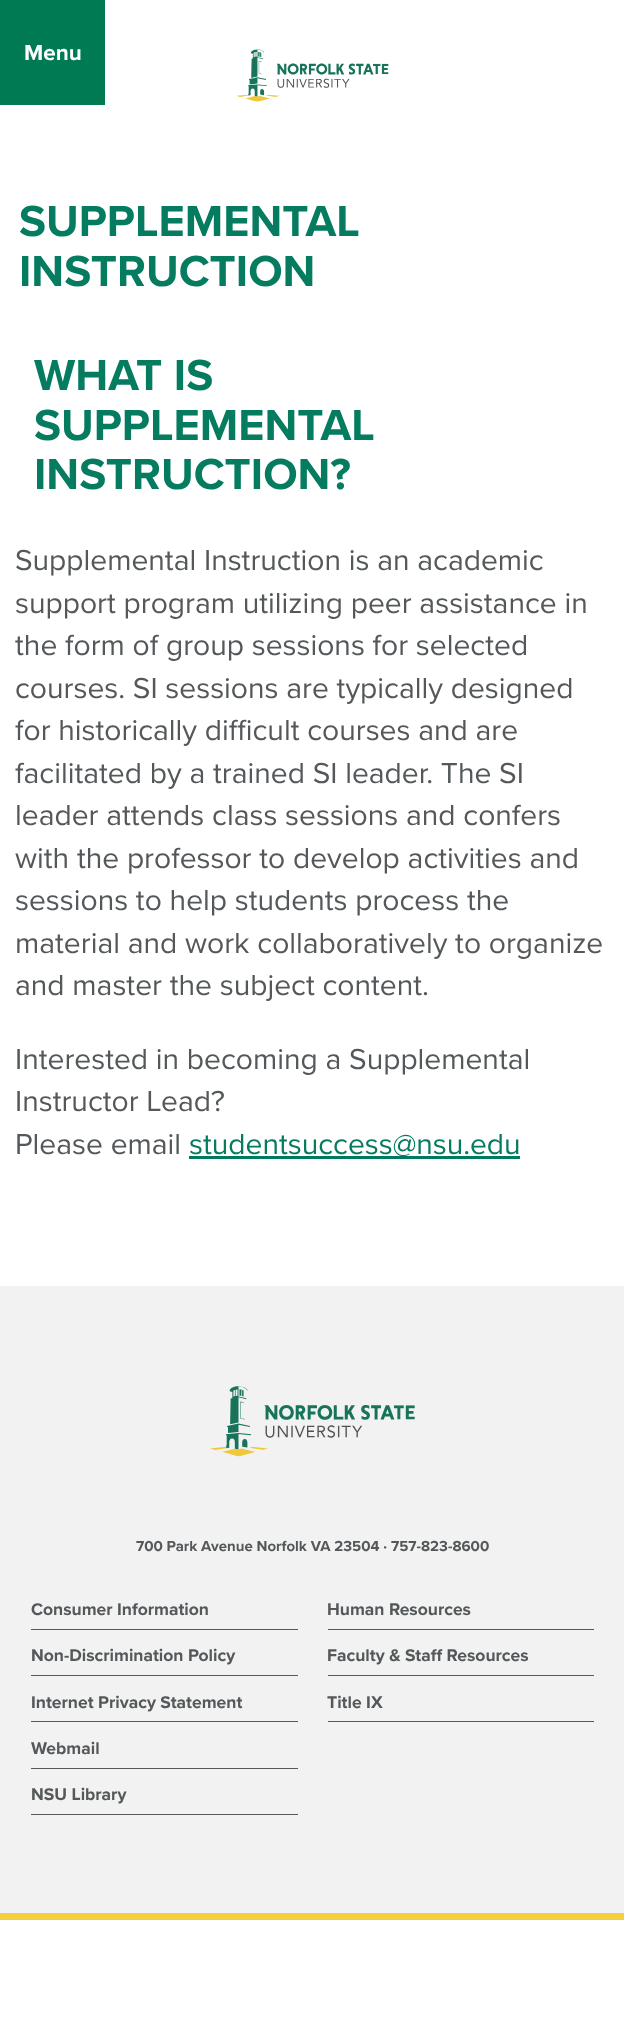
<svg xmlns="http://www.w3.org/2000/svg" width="624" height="2041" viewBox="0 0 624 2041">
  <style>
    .t1 { font: bold 22.5px Proxima Nova; fill: #fff; }
    .t2 { font: bold 45px Proxima Nova; fill: #057c60; }
    .t3 { font: 30px Proxima Nova; fill: #54585a; }
    .t4 { font: 30px Proxima Nova; fill: #057c60; }
    .t5 { font: bold 15px Proxima Nova; fill: #54585a; }
    .t6 { font: bold 17.5px Proxima Nova; fill: #54585a; }
  </style>
  <rect width="100%" height="100%" fill="#fff"/>
  <rect x="0" y="0" width="105" height="105" fill="#007a53"/>
  <text x="24" y="60" class="t1">Menu</text>
  <image x="236" y="49" width="153" height="53" href="images/1.png"/>
  <text x="19" y="236" class="t2">SUPPLEMENTAL</text>
  <text x="19" y="286" class="t2">INSTRUCTION</text>
  <text x="34" y="390" class="t2">WHAT IS</text>
  <text x="34" y="440" class="t2">SUPPLEMENTAL</text>
  <text x="34" y="489" class="t2">INSTRUCTION?</text>
  <text x="15" y="570" class="t3">Supplemental Instruction is an academic</text>
  <text x="15" y="613" class="t3">support program utilizing peer assistance in</text>
  <text x="15" y="655" class="t3">the form of group sessions for selected</text>
  <text x="15" y="698" class="t3">courses. SI sessions are typically designed</text>
  <text x="15" y="740" class="t3">for historically difficult courses and are</text>
  <text x="15" y="783" class="t3">facilitated by a trained SI leader. The SI</text>
  <text x="15" y="825" class="t3">leader attends class sessions and confers</text>
  <text x="15" y="868" class="t3">with the professor to develop activities and</text>
  <text x="15" y="910" class="t3">sessions to help students process the</text>
  <text x="15" y="953" class="t3">material and work collaboratively to organize</text>
  <text x="15" y="995" class="t3">and master the subject content.</text>
  <text x="15" y="1069" class="t3">Interested in becoming a Supplemental</text>
  <text x="15" y="1111" class="t3">Instructor Lead?</text>
  <text x="15" y="1154" class="t3">Please email</text>
  <rect x="189" y="1156" width="331" height="3" fill="#007a5e"/>
  <text x="189" y="1154" class="t4">studentsuccess@nsu.edu</text>
  <rect x="0" y="1286" width="624" height="627" fill="#f2f2f2"/>
  <rect x="0" y="1913" width="624" height="7" fill="#f3d03e"/>
  <image x="210" y="1386" width="205" height="71" href="images/2.png"/>
  <text x="136" y="1551" class="t5">700 Park Avenue Norfolk VA 23504 · 757-823-8600</text>
  <rect x="31" y="1629" width="267" height="1" fill="#54585a"/>
  <text x="31" y="1615" class="t6">Consumer Information</text>
  <rect x="328" y="1629" width="266" height="1" fill="#54585a"/>
  <text x="327" y="1615" class="t6">Human Resources</text>
  <rect x="31" y="1675" width="267" height="1" fill="#54585a"/>
  <text x="31" y="1661" class="t6">Non-Discrimination Policy</text>
  <rect x="328" y="1675" width="266" height="1" fill="#54585a"/>
  <text x="327" y="1661" class="t6">Faculty &amp; Staff Resources</text>
  <rect x="31" y="1721" width="267" height="1" fill="#54585a"/>
  <text x="31" y="1708" class="t6">Internet Privacy Statement</text>
  <rect x="328" y="1721" width="266" height="1" fill="#54585a"/>
  <text x="327" y="1708" class="t6">Title IX</text>
  <rect x="31" y="1768" width="267" height="1" fill="#54585a"/>
  <text x="31" y="1754" class="t6">Webmail</text>
  <rect x="31" y="1814" width="267" height="1" fill="#54585a"/>
  <text x="31" y="1800" class="t6">NSU Library</text>
</svg>
